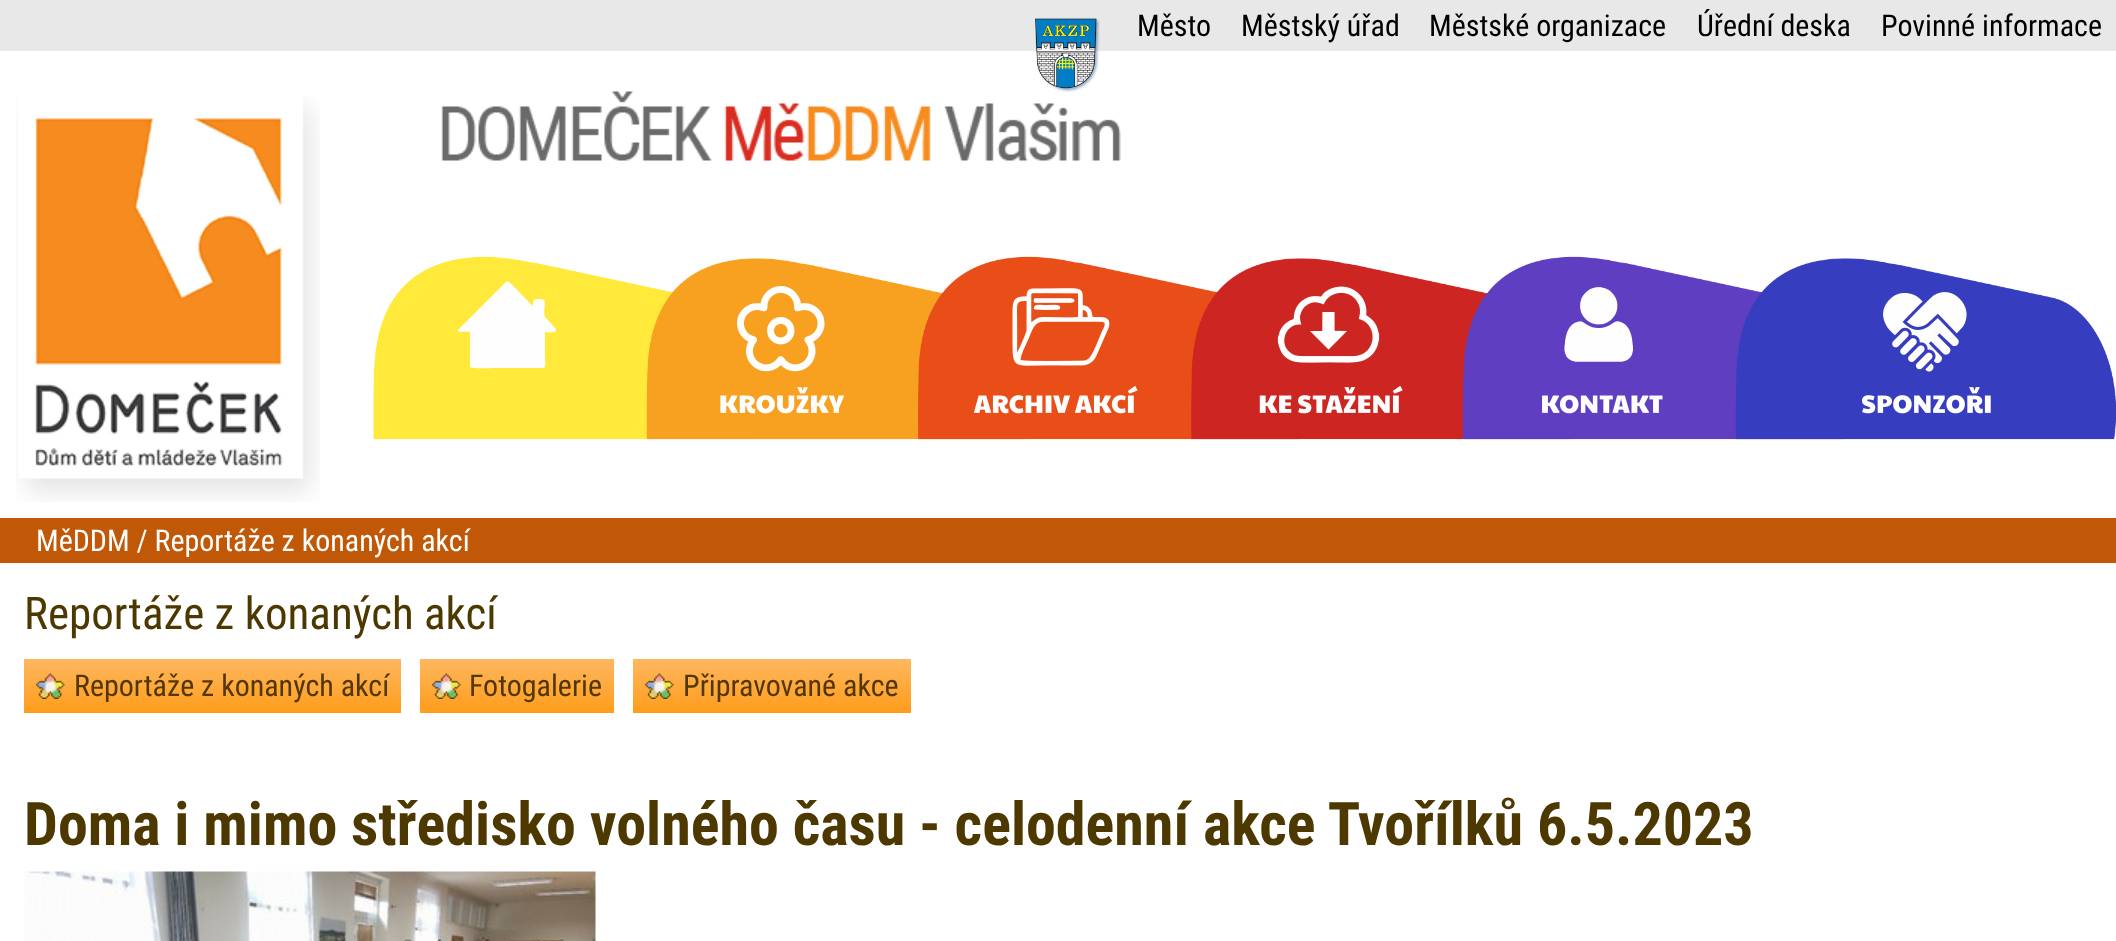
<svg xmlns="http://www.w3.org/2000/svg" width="2116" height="941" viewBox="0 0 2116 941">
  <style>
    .t1 { font: 30px Roboto Condensed; fill: #000; }
    .t2 { font: 30px Roboto Condensed; fill: #fff; }
    .t3 { font: 45px Roboto Condensed; fill: #4d3800; }
    .t4 { font: 30px Roboto Condensed; fill: #533700; }
    .t5 { font: bold 60px Roboto Condensed; fill: #4d3800; }
  </style>
  <defs>
    <linearGradient id="g1" gradientUnits="userSpaceOnUse" x1="212" y1="659" x2="212" y2="713"><stop offset="0" stop-color="#feb75f"/><stop offset="1" stop-color="#ff9c1b"/></linearGradient>
    <linearGradient id="g2" gradientUnits="userSpaceOnUse" x1="517" y1="659" x2="517" y2="713"><stop offset="0" stop-color="#feb75f"/><stop offset="1" stop-color="#ff9c1b"/></linearGradient>
    <linearGradient id="g3" gradientUnits="userSpaceOnUse" x1="772" y1="659" x2="772" y2="713"><stop offset="0" stop-color="#feb75f"/><stop offset="1" stop-color="#ff9c1b"/></linearGradient>
  </defs>
  <rect width="100%" height="100%" fill="#fff"/>
  <rect x="0" y="0" width="2116" height="51" fill="#e8e8e8"/>
  <image x="1035" y="18" width="65" height="74" href="images/1.png"/>
  <text x="1137" y="36" class="t1">Město</text>
  <text x="1241" y="36" class="t1">Městský úřad</text>
  <text x="1429" y="36" class="t1">Městské organizace</text>
  <text x="1697" y="36" class="t1">Úřední deska</text>
  <text x="1881" y="36" class="t1">Povinné informace</text>
  <image x="16" y="96" width="304" height="406" href="images/2.png"/>
  <image x="441" y="91" width="680" height="70" href="images/3.png"/>
  <image x="373" y="256" width="382" height="184" href="images/4.png"/>
  <path d="M458 330V331C460 333 466 331 470 332V367C471 369 493 368 493 368H544C546 365 545 361 545 357V332C548 332 554 333 556 331V329L545 317C543 314 546 302 544 300C543 299 540 299 539 299C533 299 533 300 533 306C529 303 509 280 507 281Z" fill="#fefefe" fill-rule="evenodd"/>
  <image x="646" y="258" width="379" height="182" href="images/5.png"/>
  <image x="720" y="286" width="125" height="128" href="images/6.png"/>
  <image x="918" y="256" width="381" height="184" href="images/7.png"/>
  <image x="973" y="288" width="165" height="126" href="images/8.png"/>
  <image x="1191" y="258" width="379" height="182" href="images/9.png"/>
  <image x="1259" y="286" width="144" height="128" href="images/10.png"/>
  <image x="1462" y="256" width="381" height="184" href="images/11.png"/>
  <image x="1542" y="287" width="121" height="127" href="images/12.png"/>
  <image x="1735" y="258" width="381" height="182" href="images/13.png"/>
  <image x="1862" y="292" width="129" height="122" href="images/14.png"/>
  <rect x="0" y="518" width="2116" height="45" fill="#c15807"/>
  <text x="36" y="551" class="t2">MěDDM / Reportáže z konaných akcí</text>
  <text x="24" y="629" class="t3">Reportáže z konaných akcí</text>
  <rect x="24" y="659" width="377" height="54" fill="url(#g1)"/>
  <image x="36" y="673" width="29" height="26" href="images/15.png"/>
  <text x="74" y="696" class="t4">Reportáže z konaných akcí</text>
  <rect x="420" y="659" width="194" height="54" fill="url(#g2)"/>
  <image x="432" y="673" width="29" height="26" href="images/16.png"/>
  <text x="469" y="696" class="t4">Fotogalerie</text>
  <rect x="633" y="659" width="278" height="54" fill="url(#g3)"/>
  <image x="645" y="673" width="29" height="26" href="images/15.png"/>
  <text x="683" y="696" class="t4">Připravované akce</text>
  <text x="24" y="845" class="t5">Doma i mimo středisko volného času - celodenní akce Tvořílků 6.5.2023</text>
  <image x="24" y="871" width="572" height="70" href="images/17.png"/>
</svg>
